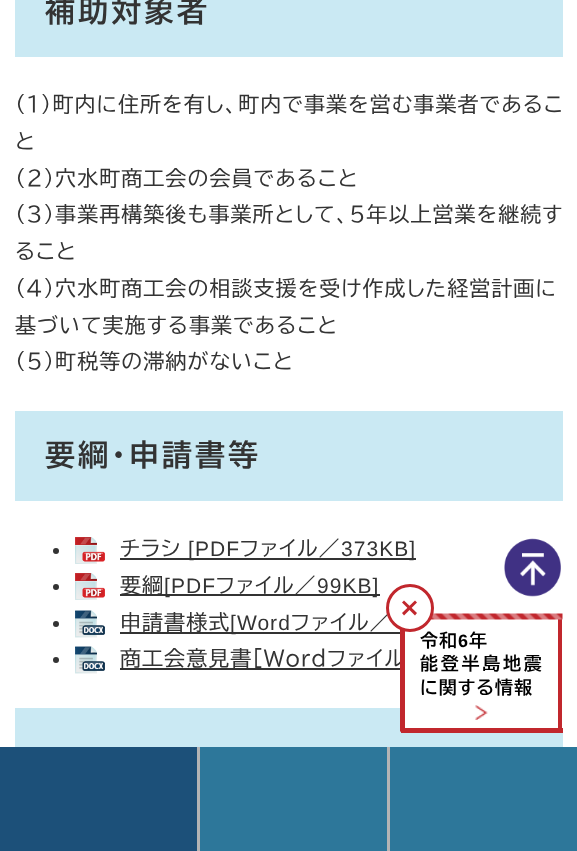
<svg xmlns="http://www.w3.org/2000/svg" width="577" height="851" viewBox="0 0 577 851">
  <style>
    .t1 { font: bold 30px BIZ UDPGothic; letter-spacing: 3px; fill: #333; }
    .t2 { font: 21px BIZ UDPGothic; letter-spacing: 1.05px; fill: #333; }
    .t3 { font: 21px Liberation Sans; letter-spacing: 1.05px; fill: #333; }
    .t4 { font: bold 18px BIZ UDPGothic; letter-spacing: 1px; fill: #000; }
    .t5 { font: bold 18px Liberation Sans; letter-spacing: 1px; fill: #000; }
    .t6 { font: bold 18px BIZ UDPGothic; letter-spacing: 2.75px; fill: #000; }
  </style>
  <rect width="100%" height="100%" fill="#fff"/>
  <rect x="15" y="0" width="548" height="57" fill="#cae9f3"/>
  <text x="45" y="22" class="t1">補助対象者</text>
  <text x="15" y="112" class="t2">（1）町内に住所を有し、町内で事業を営む事業者であるこ</text>
  <text x="15" y="149" class="t2">と</text>
  <text x="15" y="186" class="t2">（2）穴水町商工会の会員であること</text>
  <text x="15" y="222" class="t2">（3）事業再構築後も事業所として、5年以上営業を継続す</text>
  <text x="15" y="259" class="t2">ること</text>
  <text x="15" y="296" class="t2">（4）穴水町商工会の相談支援を受け作成した経営計画に</text>
  <text x="15" y="333" class="t2">基づいて実施する事業であること</text>
  <text x="15" y="369" class="t2">（5）町税等の滞納がないこと</text>
  <rect x="15" y="411" width="548" height="90" fill="#cae9f3"/>
  <text x="45" y="466" class="t1">要綱・申請書等</text>
  <circle cx="56" cy="551" r="3" fill="#333"/>
  <image x="75" y="537" width="30" height="27" href="images/1.png"/>
  <text x="120" y="556" class="t2">チラシ</text>
  <rect x="120" y="558" width="296" height="2" fill="#333"/>
  <text x="188" y="556" class="t3">[PDF</text>
  <text x="240" y="556" class="t2">ファイル／</text>
  <text x="341" y="556" class="t3">373KB]</text>
  <circle cx="56" cy="587" r="3" fill="#333"/>
  <image x="75" y="573" width="30" height="27" href="images/1.png"/>
  <rect x="120" y="594" width="260" height="2" fill="#333"/>
  <text x="120" y="593" class="t2">要綱</text>
  <text x="164" y="593" class="t3">[PDF</text>
  <text x="216" y="593" class="t2">ファイル／</text>
  <text x="317" y="593" class="t3">99KB]</text>
  <circle cx="56" cy="624" r="3" fill="#333"/>
  <image x="75" y="610" width="30" height="28" href="images/2.png"/>
  <text x="120" y="630" class="t2">申請書様式</text>
  <rect x="120" y="632" width="280" height="2" fill="#333"/>
  <text x="230" y="630" class="t3">[Word</text>
  <text x="291" y="630" class="t2">ファイル／</text>
  <circle cx="56" cy="660" r="3" fill="#333"/>
  <image x="75" y="646" width="30" height="28" href="images/2.png"/>
  <text x="120" y="666" class="t2">商工会意見書[Wordファイル</text>
  <rect x="120" y="668" width="280" height="2" fill="#333"/>
  <rect x="15" y="708" width="548" height="39" fill="#cae9f3"/>
  <image x="504" y="538" width="57" height="59" href="images/3.png"/>
  <rect x="405" y="708" width="158" height="20" fill="#fff"/>
  <path d="M562 614V732L558 728V618Z" fill="#c1272d"/>
  <rect x="401" y="728" width="162" height="5" fill="#c1272d"/>
  <path d="M400 732V614L405 618V728Z" fill="#c1272d"/>
  <image x="430" y="613" width="133" height="7" href="images/5.png"/>
  <text x="420" y="647" class="t4">令和</text>
  <circle cx="410" cy="608" r="22.5" fill="#fff" stroke="#c1272d" stroke-width="3"/>
  <path d="M415 600.5L417 602.5L404 615.5L402 613Z" fill="#c1272d"/>
  <path d="M402 602.5L404 600.5L417 613L415 615.5Z" fill="#c1272d"/>
  <image x="475" y="705" width="13" height="15" href="images/4.png"/>
  <text x="458" y="647" class="t5">6</text>
  <text x="469" y="647" class="t4">年</text>
  <text x="420" y="670" class="t6">能登半島地震</text>
  <text x="420" y="694" class="t4">に関する情報</text>
  <rect x="0" y="747" width="197" height="104" fill="#1c5079"/>
  <rect x="197" y="747" width="3" height="104" fill="#b4b4b4"/>
  <rect x="200" y="747" width="187" height="104" fill="#2d779a"/>
  <rect x="387" y="747" width="3" height="104" fill="#b4b4b4"/>
  <rect x="390" y="747" width="187" height="104" fill="#2d779a"/>
</svg>
